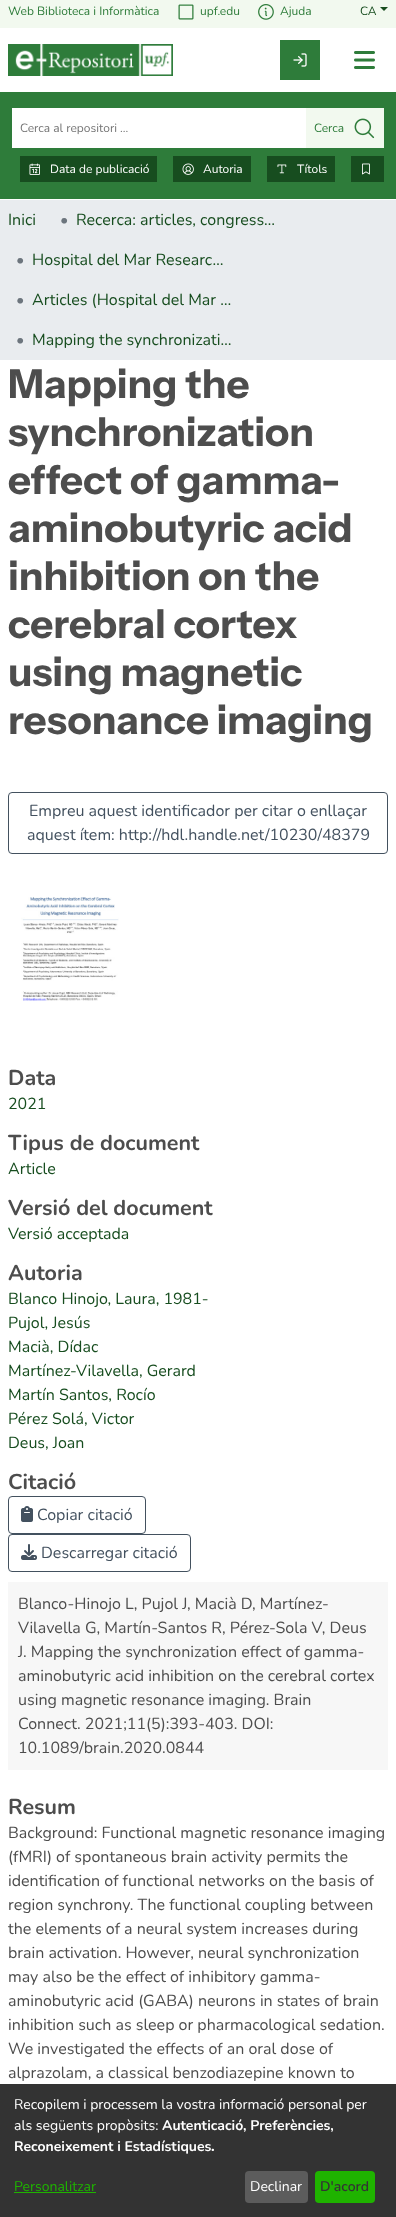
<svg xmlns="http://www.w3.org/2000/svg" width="396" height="2217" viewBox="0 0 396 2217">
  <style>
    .t1 { font: 12px Nunito; fill: #2e7c3a; }
    .t2 { font: 12px Nunito; fill: #174d1f; }
    .t3 { font: 12px Nunito; fill: #757575; }
    .t4 { font: 12px Nunito; fill: #fff; }
    .t5 { font: 16px Nunito; fill: #174d1f; }
    .t6 { font: 16px Nunito; fill: #6c757d; }
    .t7 { font: bold 40px Instrument Sans; fill: #4d4d4d; }
    .t8 { font: 16px Nunito; fill: #43515f; }
    .t9 { font: bold 21.5px Nunito; fill: #4d4d4d; }
    .t10 { font: 16px Nunito; fill: #4d4d4d; }
    .t11 { font: 14px Nunito; fill: #fff; }
    .t12 { font: bold 14px Nunito; fill: #fff; }
    .t13 { font: 800 14px Nunito; fill: #fff; }
    .t14 { font: 14px Nunito; fill: #1fb300; }
    .t15 { font: 600 14px Nunito; fill: #333; }
  </style>
  <rect width="100%" height="100%" fill="#fff"/>
  <rect x="0" y="0" width="396" height="28" fill="#f2f9ef"/>
  <text x="8" y="15" class="t1">Web Biblioteca i Informàtica</text>
  <image x="178" y="4" width="16" height="16" href="images/1.png"/>
  <text x="200" y="15" class="t1">upf.edu</text>
  <image x="258" y="4" width="16" height="16" href="images/2.png"/>
  <text x="280" y="15" class="t1">Ajuda</text>
  <text x="360" y="15" class="t2">CA</text>
  <path d="M380 7H388L384 11Z" fill="#174d1f"/>
  <image x="8" y="44" width="165" height="32" href="images/3.png"/>
  <rect x="280" y="40" width="40" height="40" fill="#2e7c3a"/>
  <image x="293" y="53" width="14" height="14" href="images/4.png"/>
  <image x="354" y="51" width="21" height="18" href="images/5.png"/>
  <rect x="0" y="92" width="396" height="107" fill="#2e7c3a"/>
  <rect x="12" y="108" width="294" height="40" fill="#fff"/>
  <text x="20" y="132" class="t3">Cerca al repositori ...</text>
  <rect x="306" y="108" width="78" height="40" fill="#f2f9ef"/>
  <text x="314" y="132" class="t1">Cerca</text>
  <image x="354" y="118" width="21" height="21" href="images/6.png"/>
  <rect x="20" y="156" width="137" height="26" fill="#174d1f"/>
  <image x="29" y="163" width="11" height="12" href="images/7.png"/>
  <text x="50" y="173" class="t4">Data de publicació</text>
  <rect x="173" y="156" width="78" height="26" fill="#174d1f"/>
  <image x="182" y="163" width="12" height="12" href="images/8.png"/>
  <text x="203" y="173" class="t4">Autoria</text>
  <rect x="267" y="156" width="68" height="26" fill="#174d1f"/>
  <image x="277" y="164" width="10" height="10" href="images/9.png"/>
  <text x="297" y="173" class="t4">Títols</text>
  <rect x="351" y="156" width="33" height="26" fill="#174d1f"/>
  <image x="362" y="163" width="8" height="12" href="images/10.png"/>
  <rect x="0" y="200" width="396" height="160" fill="#e9ecef"/>
  <text x="8" y="225" class="t5">Inici</text>
  <text x="60" y="225" class="t6">•</text>
  <text x="76" y="225" class="t5">Recerca: articles, congress…</text>
  <text x="16" y="265" class="t6">•</text>
  <text x="32" y="265" class="t5">Hospital del Mar Researc…</text>
  <text x="16" y="305" class="t6">•</text>
  <text x="32" y="305" class="t5">Articles (Hospital del Mar …</text>
  <text x="16" y="345" class="t6">•</text>
  <text x="32" y="345" class="t5">Mapping the synchronizati…</text>
  <text x="8" y="398" class="t7">Mapping the</text>
  <text x="8" y="446" class="t7">synchronization</text>
  <text x="8" y="494" class="t7">effect of gamma-</text>
  <text x="8" y="542" class="t7">aminobutyric acid</text>
  <text x="8" y="590" class="t7">inhibition on the</text>
  <text x="8" y="638" class="t7">cerebral cortex</text>
  <text x="8" y="686" class="t7">using magnetic</text>
  <text x="8" y="734" class="t7">resonance imaging</text>
  <rect x="8.5" y="792.5" width="379" height="61" rx="3.5" fill="none" stroke="#43515f"/>
  <text x="29" y="816" class="t8">Empreu aquest identificador per citar o enllaçar</text>
  <text x="27" y="840" class="t8">aquest ítem: http://hdl.handle.net/10230/48379</text>
  <image x="21" y="897" width="98" height="104" href="images/11.png"/>
  <text x="8" y="1085" class="t9">Data</text>
  <text x="8" y="1109" class="t5">2021</text>
  <text x="8" y="1150" class="t9">Tipus de document</text>
  <text x="8" y="1174" class="t5">Article</text>
  <text x="8" y="1215" class="t9">Versió del document</text>
  <text x="8" y="1239" class="t5">Versió acceptada</text>
  <text x="8" y="1280" class="t9">Autoria</text>
  <text x="8" y="1304" class="t5">Blanco Hinojo, Laura, 1981-</text>
  <text x="8" y="1328" class="t5">Pujol, Jesús</text>
  <text x="8" y="1352" class="t5">Macià, Dídac</text>
  <text x="8" y="1376" class="t5">Martínez-Vilavella, Gerard</text>
  <text x="8" y="1400" class="t5">Martín Santos, Rocío</text>
  <text x="8" y="1424" class="t5">Pérez Solá, Victor</text>
  <text x="8" y="1448" class="t5">Deus, Joan</text>
  <text x="8" y="1489" class="t9">Citació</text>
  <rect x="8.5" y="1496.5" width="137" height="37" rx="3.5" fill="none" stroke="#43515f"/>
  <image x="21" y="1506" width="12" height="16" href="images/12.png"/>
  <text x="37" y="1520" class="t8">Copiar citació</text>
  <rect x="8.5" y="1534.5" width="182" height="37" rx="3.5" fill="none" stroke="#43515f"/>
  <image x="21" y="1544" width="16" height="16" href="images/13.png"/>
  <text x="41" y="1558" class="t8">Descarregar citació</text>
  <rect x="8" y="1582" width="380" height="188" fill="#f7f7f7"/>
  <text x="18" y="1609" class="t10">Blanco-Hinojo L, Pujol J, Macià D, Martínez-</text>
  <text x="18" y="1633" class="t10">Vilavella G, Martín-Santos R, Pérez-Sola V, Deus</text>
  <text x="18" y="1657" class="t10">J. Mapping the synchronization effect of gamma-</text>
  <text x="18" y="1681" class="t10">aminobutyric acid inhibition on the cerebral cortex</text>
  <text x="18" y="1705" class="t10">using magnetic resonance imaging. Brain</text>
  <text x="18" y="1729" class="t10">Connect. 2021;11(5):393-403. DOI:</text>
  <text x="18" y="1753" class="t10">10.1089/brain.2020.0844</text>
  <text x="8" y="1814" class="t9">Resum</text>
  <text x="8" y="1838" class="t10">Background: Functional magnetic resonance imaging</text>
  <text x="8" y="1862" class="t10">(fMRI) of spontaneous brain activity permits the</text>
  <text x="8" y="1886" class="t10">identification of functional networks on the basis of</text>
  <text x="8" y="1910" class="t10">region synchrony. The functional coupling between</text>
  <text x="8" y="1934" class="t10">the elements of a neural system increases during</text>
  <text x="8" y="1958" class="t10">brain activation. However, neural synchronization</text>
  <text x="8" y="1982" class="t10">may also be the effect of inhibitory gamma-</text>
  <text x="8" y="2006" class="t10">aminobutyric acid (GABA) neurons in states of brain</text>
  <text x="8" y="2030" class="t10">inhibition such as sleep or pharmacological sedation.</text>
  <text x="8" y="2054" class="t10">We investigated the effects of an oral dose of</text>
  <text x="8" y="2078" class="t10">alprazolam, a classical benzodiazepine known to</text>
  <rect x="0" y="2084" width="396" height="133" fill="#333"/>
  <text x="14" y="2109" class="t11">Recopilem i processem la vostra informació personal per</text>
  <text x="14" y="2130" class="t11">als següents propòsits:</text>
  <text x="162" y="2130" class="t12">Autenticació, Preferències,</text>
  <text x="14" y="2151" class="t12">Reconeixement i Estadístiques</text>
  <text x="211" y="2151" class="t13">.</text>
  <text x="14" y="2191" class="t14">Personalitzar</text>
  <rect x="14" y="2192" width="82" height="1" fill="#1fb300"/>
  <rect x="245" y="2171" width="63" height="32" rx="4" fill="#5c5c5c"/>
  <text x="250" y="2191" class="t11">Declinar</text>
  <rect x="315" y="2171" width="60" height="32" rx="4" fill="#1fb300"/>
  <text x="320" y="2191" class="t15">D'acord</text>
</svg>
